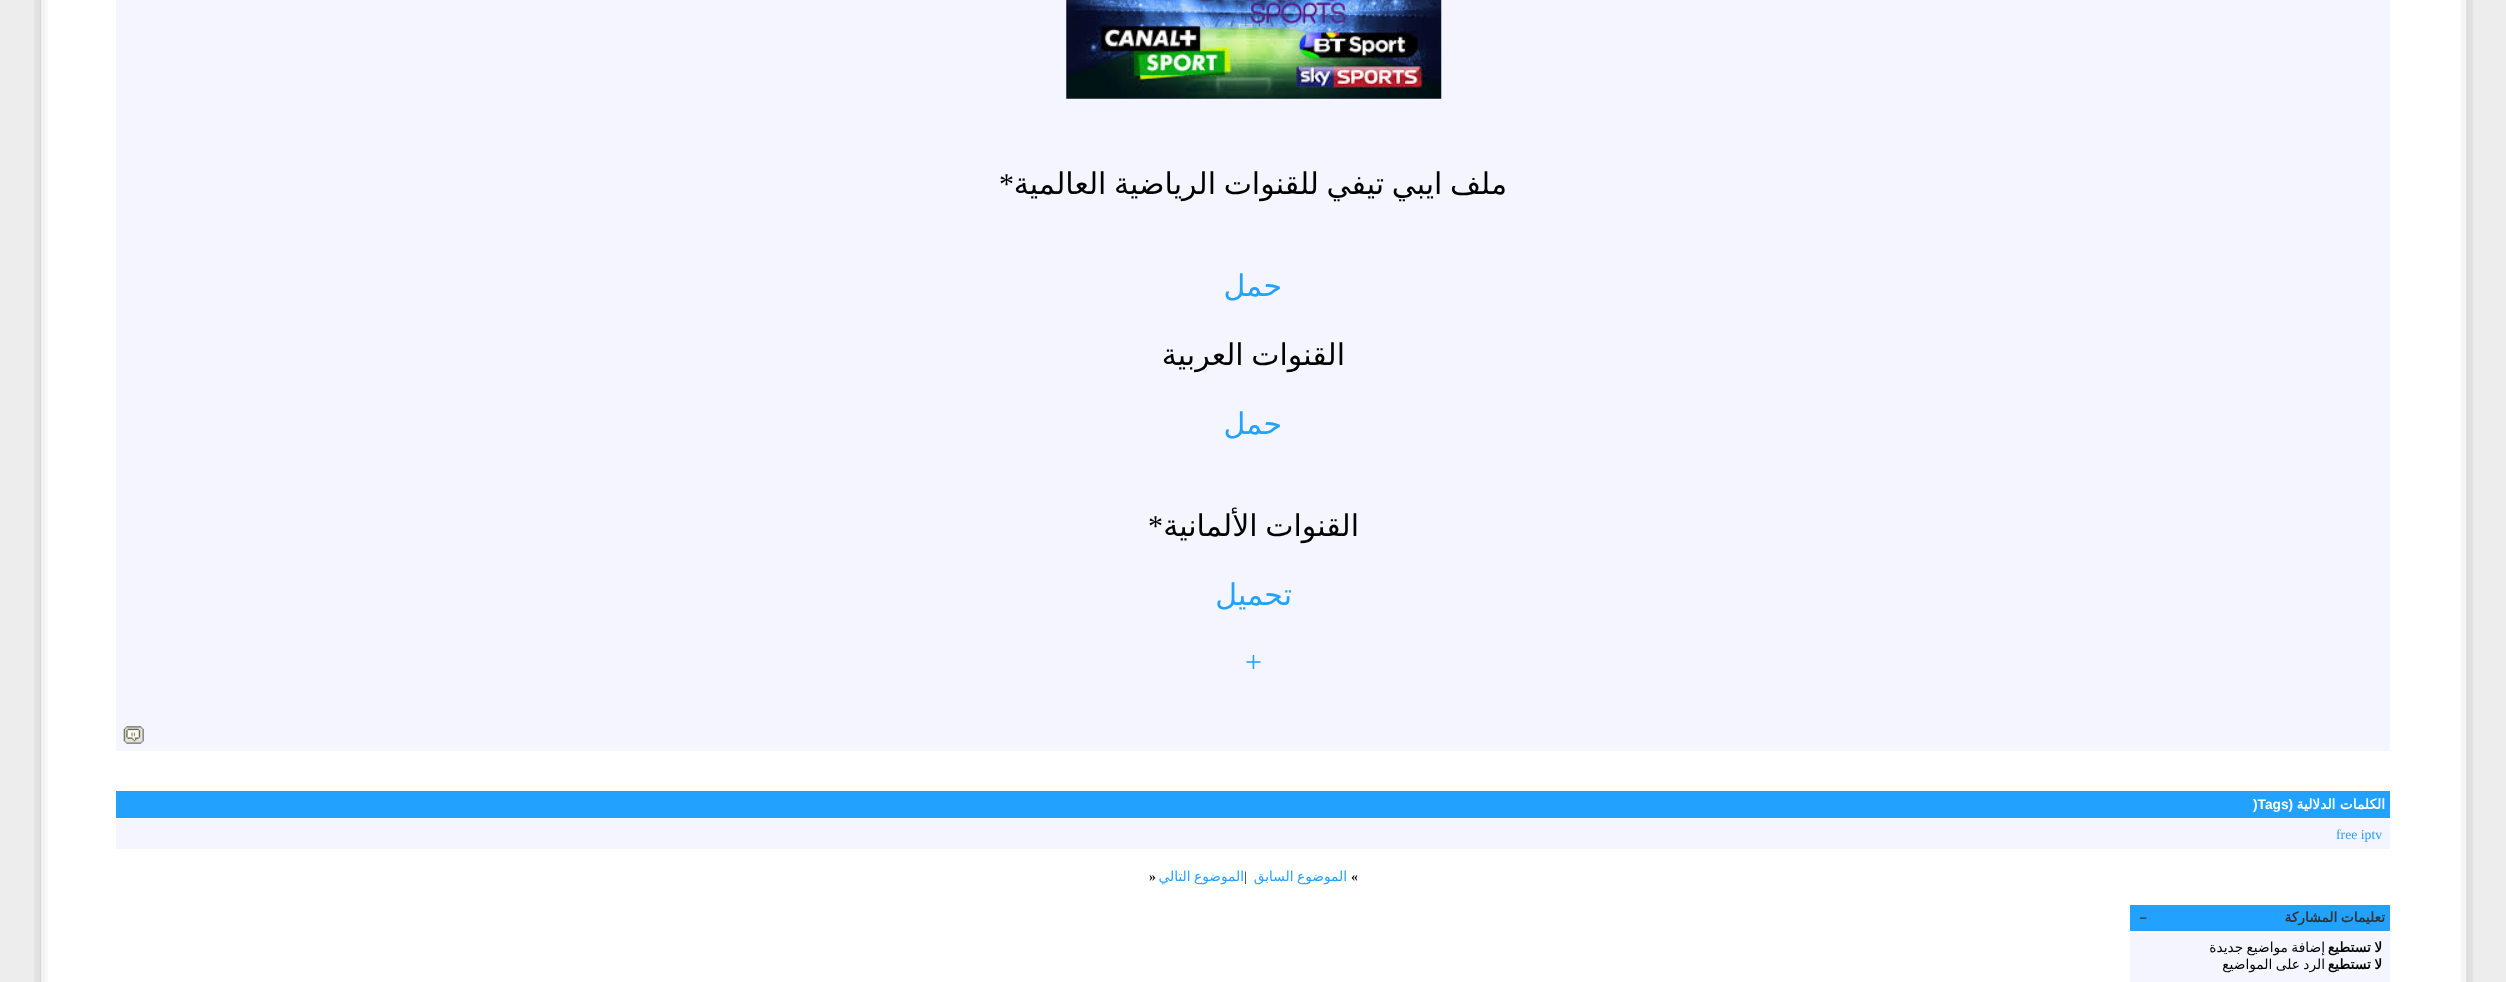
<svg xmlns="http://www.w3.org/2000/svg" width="2506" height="982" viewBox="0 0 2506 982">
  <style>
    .t1 { font: 30px DejaVu Sans; direction: rtl; fill: #000; }
    .t2 { font: 30px Liberation Serif; direction: rtl; fill: #000; }
    .t3 { font: 30px DejaVu Sans; direction: rtl; fill: #22a1ff; }
    .t4 { font: 30px Liberation Serif; fill: #22a1ff; }
    .t5 { font: bold 13.75px DejaVu Sans; direction: rtl; fill: #fff; }
    .t6 { font: bold 13.75px Liberation Sans; direction: rtl; fill: #fff; }
    .t7 { font: bold 13.75px Liberation Sans; fill: #fff; }
    .t8 { font: 13.75px Liberation Serif; fill: #22a1ff; }
    .t9 { font: bold 13.75px Liberation Serif; fill: #000; }
    .t10 { font: 13.75px DejaVu Sans; direction: rtl; fill: #22a1ff; }
    .t11 { font: 13.75px Liberation Serif; fill: #000; }
    .t12 { font: bold 13.75px DejaVu Sans; direction: rtl; fill: #333; }
    .t13 { font: bold 13.75px DejaVu Sans; direction: rtl; fill: #000; }
    .t14 { font: 13.75px DejaVu Sans; direction: rtl; fill: #000; }
  </style>
  <rect width="100%" height="100%" fill="#fff"/>
  <image x="0" y="0" width="48" height="982" href="images/1.png"/>
  <image x="2460" y="0" width="46" height="982" href="images/2.png"/>
  <rect x="116" y="0" width="2274" height="751" fill="#f5f5ff"/>
  <image x="1066" y="0" width="376" height="99" href="images/3.png"/>
  <text x="1507" y="194" word-spacing="-2" class="t1">ملف ايبي تيفي للقنوات الرياضية العالمية</text>
  <text x="1014" y="194" class="t2">*</text>
  <text x="1282" y="296" class="t3">حمل</text>
  <text x="1345" y="365" word-spacing="-2" class="t1">القنوات العربية</text>
  <text x="1282" y="434" class="t3">حمل</text>
  <text x="1359" y="536" word-spacing="-2" class="t1">القنوات الألمانية</text>
  <text x="1163" y="536" class="t2">*</text>
  <text x="1292" y="605" class="t3">تحميل</text>
  <text x="1245" y="672" class="t4">+</text>
  <image x="123" y="726" width="21" height="18" href="images/4.png"/>
  <rect x="116" y="791" width="2274" height="27" fill="#22a1ff"/>
  <text x="2385" y="809" class="t5">الكلمات الدلالية</text>
  <text x="2293" y="809" class="t6">(</text>
  <text x="2253" y="809" class="t7">)Tags</text>
  <rect x="116" y="819" width="2274" height="30" fill="#f5f5ff"/>
  <text x="2336" y="839" class="t8">free iptv</text>
  <text x="1351" y="881" class="t9">«</text>
  <text x="1347" y="881" word-spacing="-1" class="t10">الموضوع السابق</text>
  <text x="1244" y="881" class="t11">|</text>
  <text x="1244" y="881" word-spacing="-1" class="t10">الموضوع التالي</text>
  <text x="1149" y="881" class="t9">»</text>
  <rect x="2130" y="905" width="260" height="26" fill="#22a1ff"/>
  <text x="2385" y="922" word-spacing="-1" class="t12">تعليمات المشاركة</text>
  <image x="2139" y="917" width="8" height="2" href="images/5.png"/>
  <rect x="2130" y="933" width="260" height="49" fill="#f5f5ff"/>
  <text x="2382" y="952" word-spacing="-1" class="t13">لا تستطيع</text>
  <text x="2325" y="952" word-spacing="-1" class="t14">إضافة مواضيع جديدة</text>
  <text x="2382" y="969" word-spacing="-1" class="t13">لا تستطيع</text>
  <text x="2325" y="969" word-spacing="-1" class="t14">الرد على المواضيع</text>
</svg>
